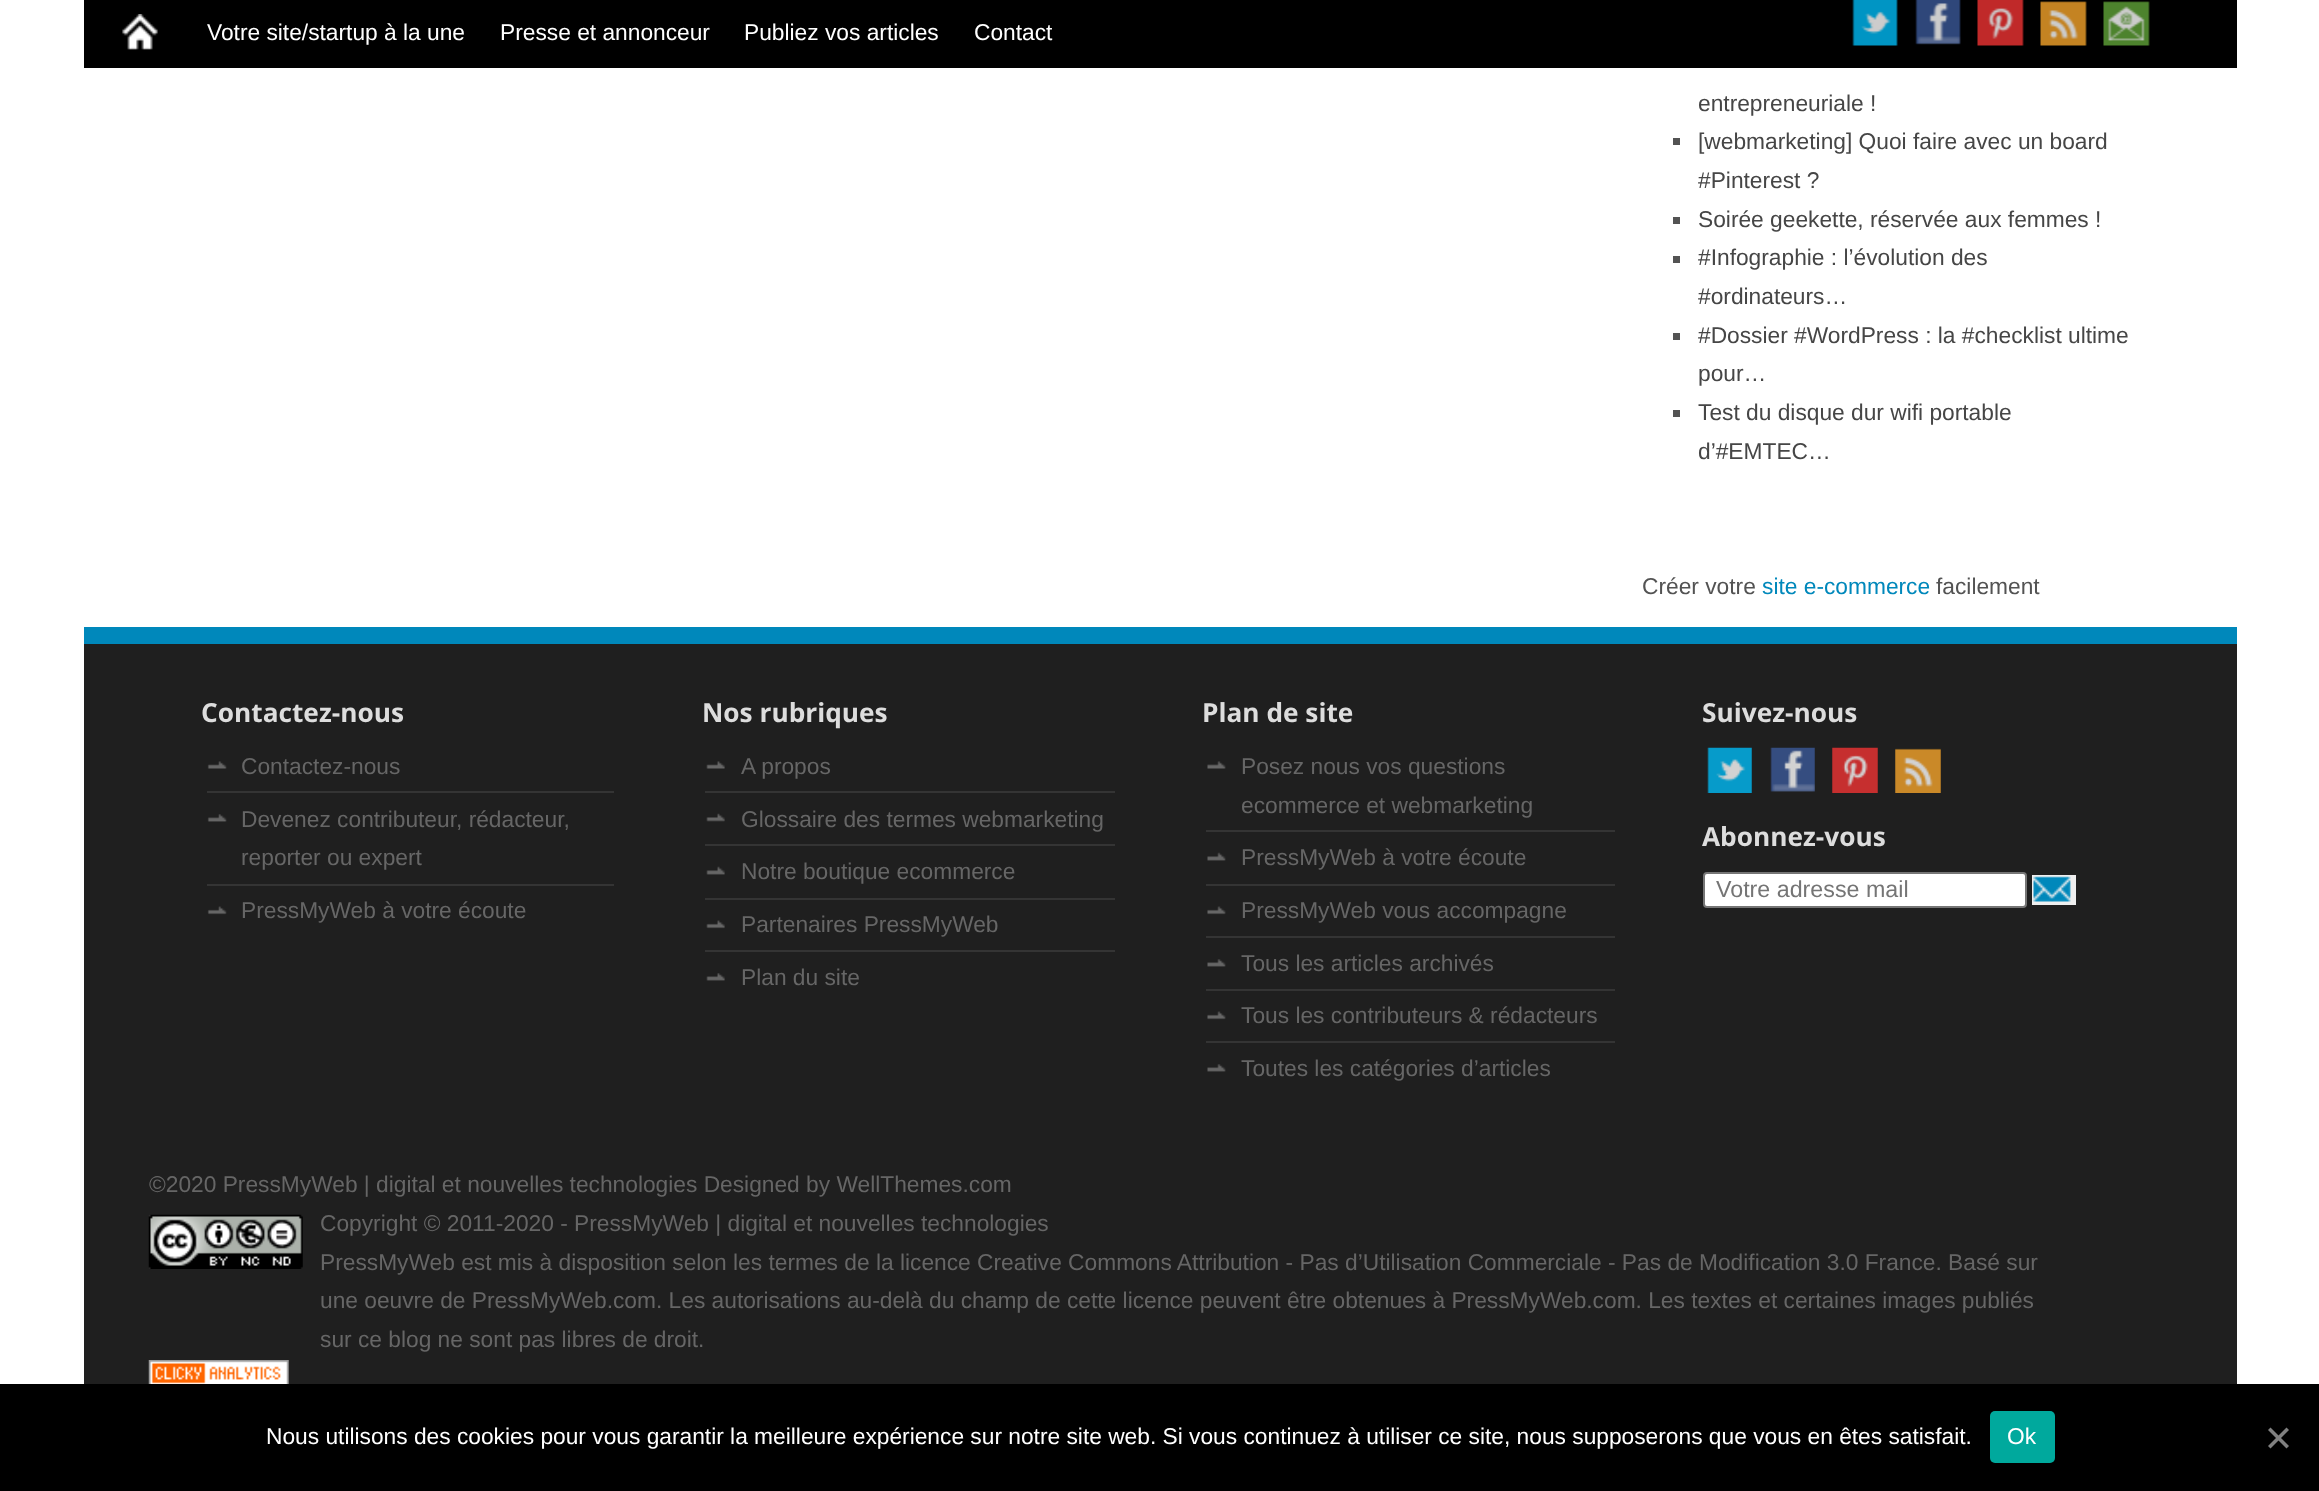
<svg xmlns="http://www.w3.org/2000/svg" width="2319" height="1491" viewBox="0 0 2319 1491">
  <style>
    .t1 { font: 22.75px Liberation Sans; fill: #fff; }
    .t2 { font: 22.75px Liberation Sans; fill: #464646; }
    .t3 { font: 22.75px Liberation Sans; fill: #535353; }
    .t4 { font: 22.75px Liberation Sans; fill: #08b; }
    .t5 { font: bold 26.25px Open Sans; fill: #ddd; }
    .t6 { font: 22.75px Liberation Sans; fill: #666; }
    .t7 { font: 23.25px Liberation Sans; fill: #757575; }
  </style>
  <rect width="100%" height="100%" fill="#fff"/>
  <rect x="84" y="0" width="2153" height="68" fill="#000"/>
  <image x="122" y="14" width="36" height="36" href="images/1.png"/>
  <text x="207" y="40" class="t1">Votre site/startup à la une</text>
  <text x="500" y="40" class="t1">Presse et annonceur</text>
  <text x="744" y="40" class="t1">Publiez vos articles</text>
  <text x="974" y="40" class="t1">Contact</text>
  <image x="1852" y="0" width="46" height="46" href="images/2.png"/>
  <image x="1915" y="0" width="46" height="45" href="images/3.png"/>
  <image x="1977" y="0" width="47" height="46" href="images/4.png"/>
  <image x="2040" y="1" width="47" height="45" href="images/5.png"/>
  <image x="2103" y="1" width="47" height="45" href="images/6.png"/>
  <text x="1698" y="111" class="t2">entrepreneuriale !</text>
  <rect x="1673" y="138" width="7" height="7" fill="#535353"/>
  <text x="1698" y="149" class="t2">[webmarketing] Quoi faire avec un board</text>
  <text x="1698" y="188" class="t2">#Pinterest ?</text>
  <rect x="1673" y="217" width="7" height="7" fill="#535353"/>
  <text x="1698" y="227" class="t2">Soirée geekette, réservée aux femmes !</text>
  <rect x="1673" y="256" width="7" height="7" fill="#535353"/>
  <text x="1698" y="265" class="t2">#Infographie : l’évolution des</text>
  <text x="1698" y="304" class="t2">#ordinateurs…</text>
  <rect x="1673" y="333" width="7" height="7" fill="#535353"/>
  <text x="1698" y="343" class="t2">#Dossier #WordPress : la #checklist ultime</text>
  <text x="1698" y="381" class="t2">pour…</text>
  <rect x="1673" y="410" width="7" height="7" fill="#535353"/>
  <text x="1698" y="420" class="t2">Test du disque dur wifi portable</text>
  <text x="1698" y="459" class="t2">d’#EMTEC…</text>
  <text x="1642" y="594" class="t3">Créer votre</text>
  <text x="1762" y="594" class="t4">site e-commerce</text>
  <text x="1936" y="594" class="t3">facilement</text>
  <rect x="84" y="644" width="2153" height="740" fill="#1f1f1f"/>
  <rect x="84" y="627" width="2153" height="17" fill="#08b"/>
  <text x="201" y="722" class="t5">Contactez-nous</text>
  <image x="207" y="761" width="20" height="8" href="images/7.png"/>
  <rect x="207" y="791" width="407" height="2" fill="#343434"/>
  <text x="241" y="774" class="t6">Contactez-nous</text>
  <image x="207" y="814" width="20" height="8" href="images/8.png"/>
  <rect x="207" y="884" width="407" height="2" fill="#343434"/>
  <text x="241" y="827" class="t6">Devenez contributeur, rédacteur,</text>
  <text x="241" y="865" class="t6">reporter ou expert</text>
  <image x="207" y="906" width="20" height="9" href="images/9.png"/>
  <text x="241" y="918" class="t6">PressMyWeb à votre écoute</text>
  <text x="702" y="722" class="t5">Nos rubriques</text>
  <image x="706" y="761" width="19" height="8" href="images/10.png"/>
  <rect x="705" y="791" width="410" height="2" fill="#343434"/>
  <text x="741" y="774" class="t6">A propos</text>
  <image x="706" y="813" width="19" height="9" href="images/11.png"/>
  <rect x="705" y="844" width="410" height="2" fill="#343434"/>
  <text x="741" y="827" class="t6">Glossaire des termes webmarketing</text>
  <image x="706" y="866" width="19" height="9" href="images/12.png"/>
  <rect x="705" y="898" width="410" height="2" fill="#343434"/>
  <text x="741" y="879" class="t6">Notre boutique ecommerce</text>
  <image x="706" y="920" width="19" height="9" href="images/13.png"/>
  <rect x="705" y="950" width="410" height="2" fill="#343434"/>
  <text x="741" y="932" class="t6">Partenaires PressMyWeb</text>
  <image x="706" y="973" width="19" height="8" href="images/14.png"/>
  <text x="741" y="985" class="t6">Plan du site</text>
  <text x="1202" y="722" class="t5">Plan de site</text>
  <image x="1207" y="761" width="19" height="8" href="images/15.png"/>
  <rect x="1206" y="830" width="409" height="2" fill="#343434"/>
  <text x="1241" y="774" class="t6">Posez nous vos questions</text>
  <text x="1241" y="813" class="t6">ecommerce et webmarketing</text>
  <image x="1207" y="852" width="19" height="9" href="images/16.png"/>
  <rect x="1206" y="884" width="409" height="2" fill="#343434"/>
  <text x="1241" y="865" class="t6">PressMyWeb à votre écoute</text>
  <image x="1207" y="906" width="19" height="9" href="images/17.png"/>
  <rect x="1206" y="936" width="409" height="2" fill="#343434"/>
  <text x="1241" y="918" class="t6">PressMyWeb vous accompagne</text>
  <image x="1207" y="959" width="19" height="8" href="images/18.png"/>
  <rect x="1206" y="989" width="409" height="2" fill="#343434"/>
  <text x="1241" y="971" class="t6">Tous les articles archivés</text>
  <image x="1207" y="1011" width="19" height="9" href="images/17.png"/>
  <rect x="1206" y="1041" width="409" height="2" fill="#343434"/>
  <text x="1241" y="1023" class="t6">Tous les contributeurs &amp; rédacteurs</text>
  <image x="1207" y="1064" width="19" height="8" href="images/18.png"/>
  <text x="1241" y="1076" class="t6">Toutes les catégories d’articles</text>
  <text x="1702" y="722" class="t5">Suivez-nous</text>
  <image x="1707" y="747" width="45" height="46" href="images/19.png"/>
  <image x="1770" y="747" width="45" height="45" href="images/20.png"/>
  <image x="1832" y="747" width="46" height="46" href="images/21.png"/>
  <image x="1895" y="748" width="46" height="45" href="images/22.png"/>
  <text x="1702" y="846" class="t5">Abonnez-vous</text>
  <rect x="1704" y="873" width="322" height="34" rx="3" fill="#fff" stroke="#767676" stroke-width="2"/>
  <text x="1716" y="897" class="t7">Votre adresse mail</text>
  <rect x="2032" y="875" width="44" height="30" fill="#efefef"/>
  <image x="2033" y="876" width="38" height="26" href="images/23.png"/>
  <text x="149" y="1192" class="t6">©2020 PressMyWeb | digital et nouvelles technologies Designed by WellThemes.com</text>
  <image x="148" y="1214" width="155" height="55" href="images/24.png"/>
  <text x="320" y="1231" class="t6">Copyright © 2011-2020 - PressMyWeb | digital et nouvelles technologies</text>
  <text x="320" y="1270" class="t6">PressMyWeb est mis à disposition selon les termes de la licence Creative Commons Attribution - Pas d’Utilisation Commerciale - Pas de Modification 3.0 France. Basé sur</text>
  <text x="320" y="1308" class="t6">une oeuvre de PressMyWeb.com. Les autorisations au-delà du champ de cette licence peuvent être obtenues à PressMyWeb.com. Les textes et certaines images publiés</text>
  <text x="320" y="1347" class="t6">sur ce blog ne sont pas libres de droit.</text>
  <image x="148" y="1360" width="141" height="24" href="images/25.png"/>
  <rect x="0" y="1384" width="2319" height="107" fill="#000"/>
  <text x="266" y="1444" class="t1">Nous utilisons des cookies pour vous garantir la meilleure expérience sur notre site web. Si vous continuez à utiliser ce site, nous supposerons que vous en êtes satisfait.</text>
  <rect x="1990" y="1411" width="65" height="52" rx="5" fill="#00a99d"/>
  <text x="2007" y="1444" class="t1">Ok</text>
  <path d="M2286.5 1427.5L2289 1430L2270.5 1448.5L2268 1446Z" fill="#808080"/>
  <path d="M2268 1430L2270.5 1427.5L2289 1446L2286.5 1448.5Z" fill="#808080"/>
</svg>
